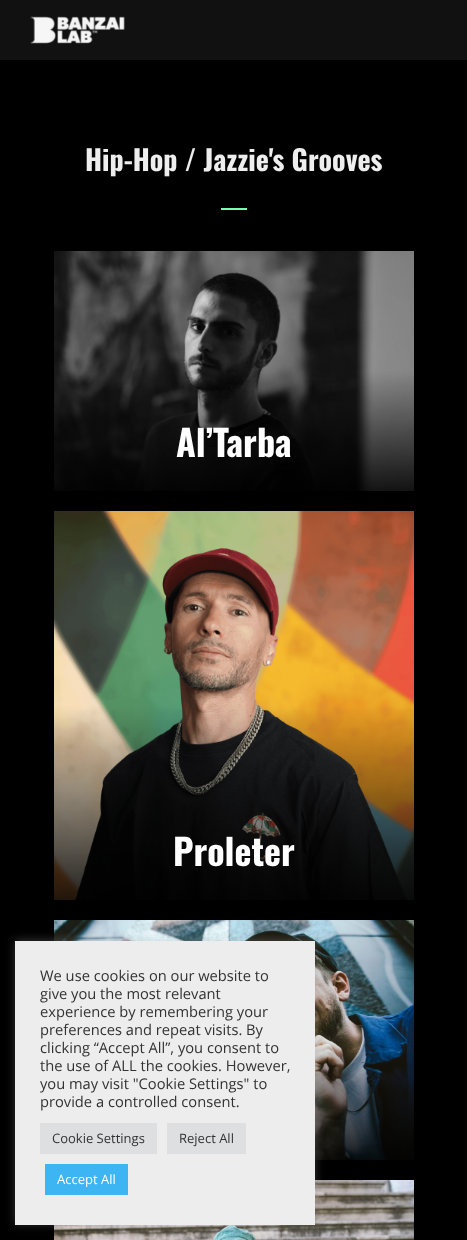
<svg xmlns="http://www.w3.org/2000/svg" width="467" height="1240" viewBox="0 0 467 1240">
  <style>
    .t1 { font: bold 28px Oswald; fill: #eee; }
    .t2 { font: bold 36px Oswald; fill: #fff; }
    .t3 { font: 14.7px Open Sans; fill: #333; }
    .t4 { font: 13px Open Sans; fill: #333; }
    .t5 { font: 13px Open Sans; fill: #fff; }
  </style>
  <rect width="100%" height="100%" fill="#000"/>
  <rect x="0" y="0" width="467" height="60" fill="#111"/>
  <image x="30" y="16" width="95" height="28" href="images/1.png"/>
  <text x="85" y="171" class="t1">Hip-Hop / Jazzie's Grooves</text>
  <rect x="221" y="208" width="26" height="2" fill="#75ffb3"/>
  <image x="54" y="251" width="360" height="240" href="images/2.png"/>
  <text x="176" y="457" class="t2">Al’Tarba</text>
  <image x="54" y="511" width="360" height="389" href="images/3.png"/>
  <text x="173" y="866" class="t2">Proleter</text>
  <image x="54" y="920" width="360" height="240" href="images/4.png"/>
  <image x="54" y="1180" width="360" height="60" href="images/5.png"/>
  <rect x="15" y="940" width="300" height="284" fill="#acabab4d" filter="blur(5px)"/>
  <rect x="15" y="941" width="300" height="284" fill="#ededed"/>
  <text x="40" y="981" class="t3">We use cookies on our website to</text>
  <text x="40" y="999" class="t3">give you the most relevant</text>
  <text x="40" y="1017" class="t3">experience by remembering your</text>
  <text x="40" y="1035" class="t3">preferences and repeat visits. By</text>
  <text x="40" y="1053" class="t3">clicking “Accept All”, you consent to</text>
  <text x="40" y="1071" class="t3">the use of ALL the cookies. However,</text>
  <text x="40" y="1089" class="t3">you may visit "Cookie Settings" to</text>
  <text x="40" y="1107" class="t3">provide a controlled consent.</text>
  <rect x="40" y="1123" width="117" height="31" fill="#dedfe0"/>
  <text x="52" y="1143" class="t4">Cookie Settings</text>
  <rect x="167" y="1123" width="79" height="31" fill="#dedfe0"/>
  <text x="179" y="1143" class="t4">Reject All</text>
  <rect x="45" y="1164" width="83" height="31" fill="#3cb5f2"/>
  <text x="57" y="1184" class="t5">Accept All</text>
</svg>
